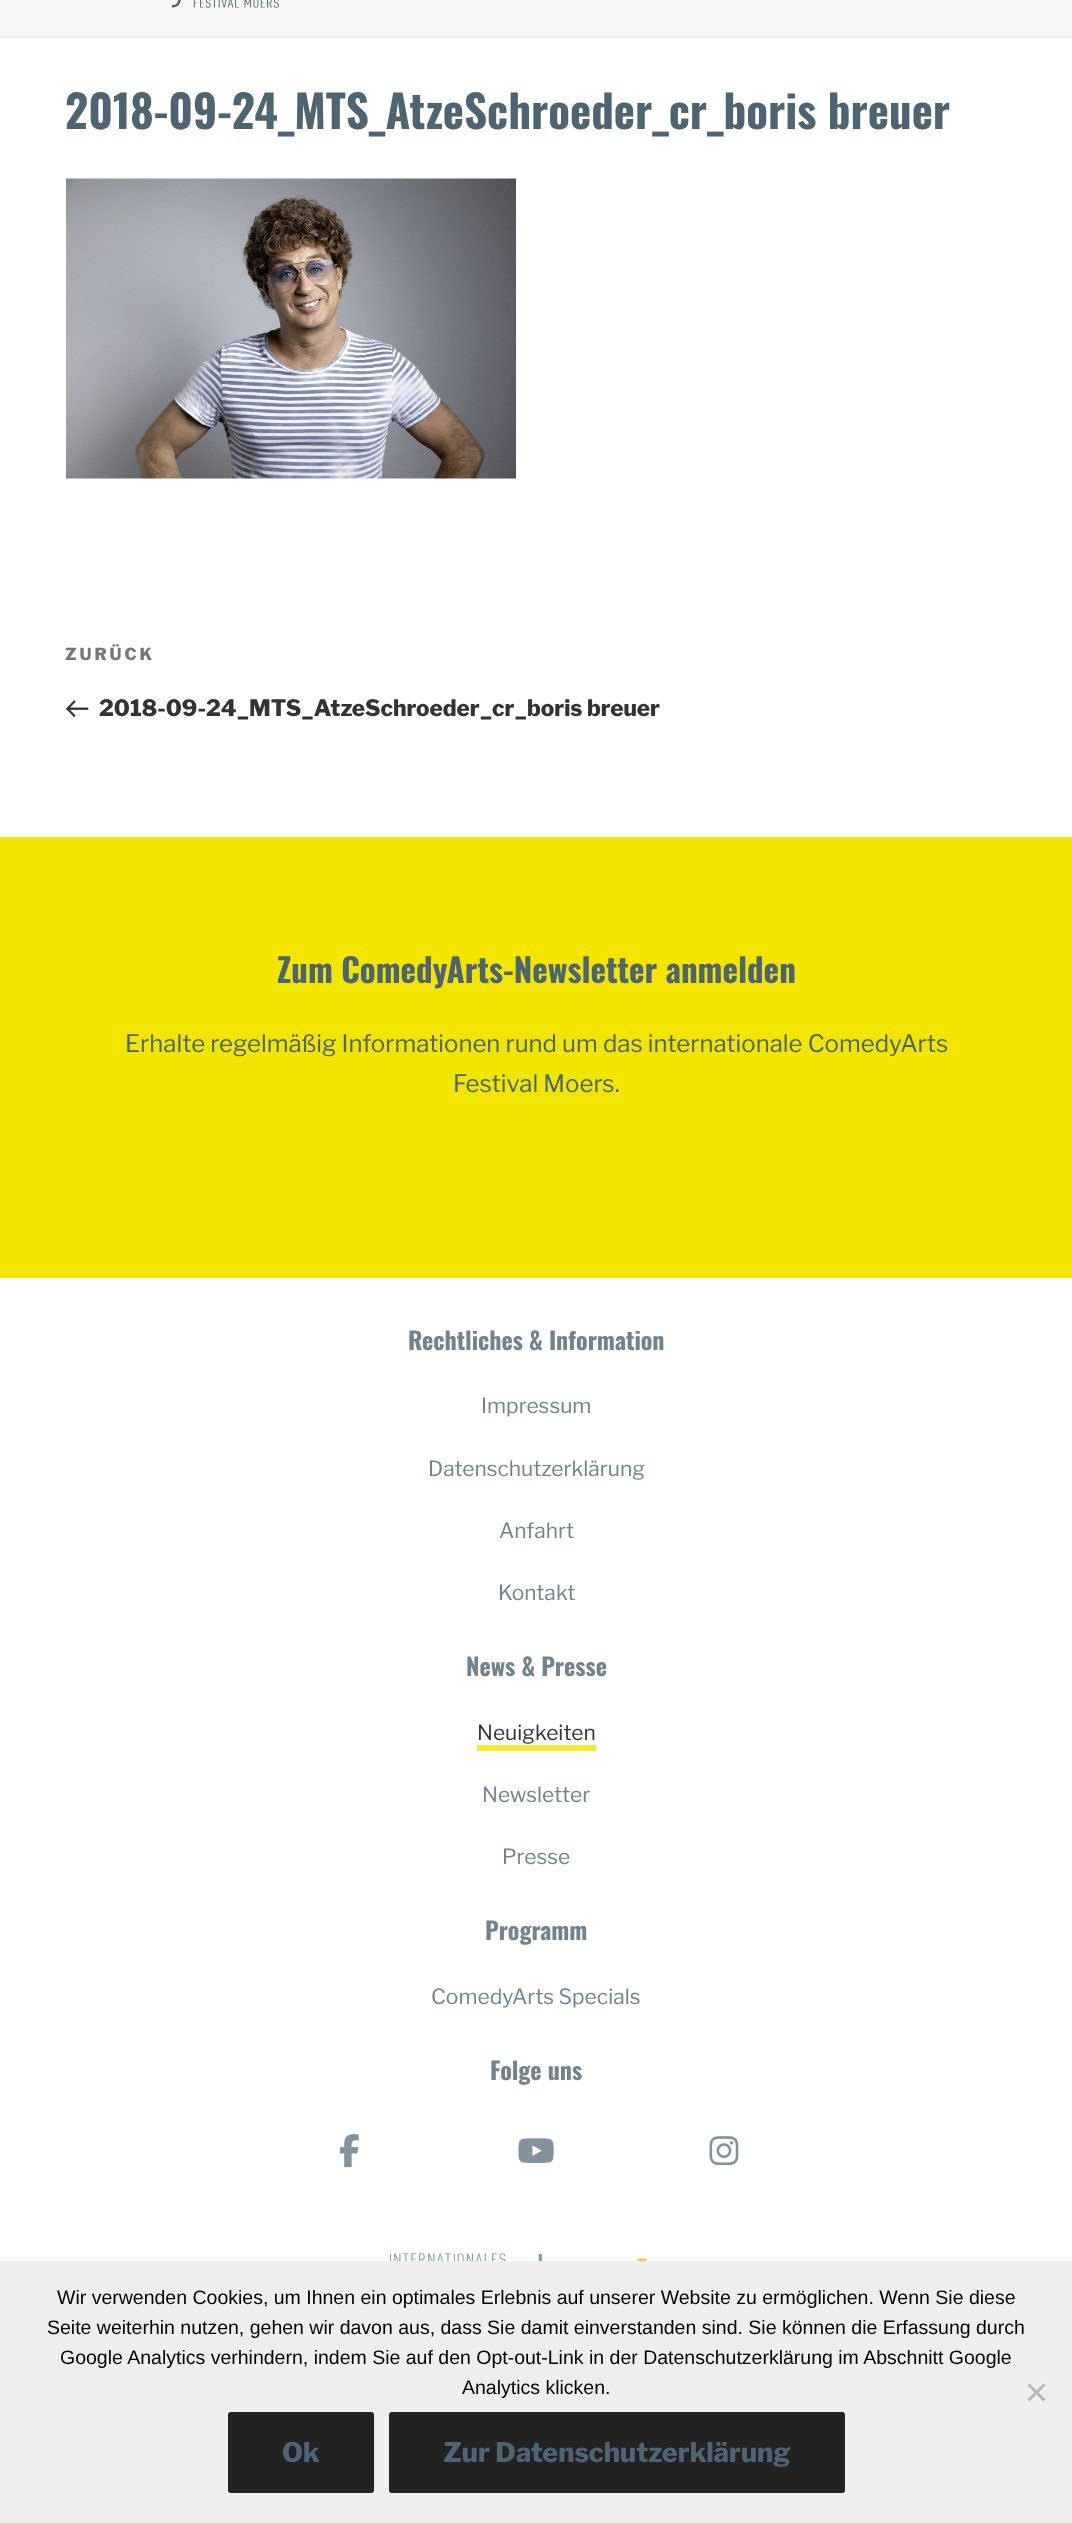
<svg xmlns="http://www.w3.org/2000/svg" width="1072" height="2523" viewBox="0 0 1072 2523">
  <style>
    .t1 { font: bold 45px Oswald; fill: #4d6473; }
    .t2 { font: 100 16.5px Libre Franklin; letter-spacing: 3px; fill: #767676; }
    .t3 { font: 100 22.5px Libre Franklin; fill: #333; }
    .t4 { font: bold 33px Oswald; fill: #4d6473; }
    .t5 { font: 100 24px 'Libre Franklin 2'; fill: #4d6473; }
    .t6 { font: bold 24px Oswald; fill: #71838f; }
    .t7 { font: 100 21px 'Libre Franklin 2'; fill: #71838f; }
    .t8 { font: 100 21px 'Libre Franklin 2'; fill: #333; }
    .t9 { font: 19.5px Liberation Sans; fill: #000; }
    .t10 { font: 100 27px Libre Franklin; fill: #4d6473; }
  </style>
  <rect width="100%" height="100%" fill="#fff"/>
  <rect x="0" y="0" width="1072" height="36" fill="#f7f7f7"/>
  <rect x="0" y="36" width="1072" height="2" fill="#eee"/>
  <image x="171" y="0" width="108" height="8" href="images/1.png"/>
  <text x="65" y="129" class="t1">2018-09-24_MTS_AtzeSchroeder_cr_boris breuer</text>
  <image x="66" y="178" width="450" height="301" href="images/2.png"/>
  <text x="65" y="660" class="t2">ZURÜCK</text>
  <image x="66" y="700" width="23" height="18" href="images/3.png"/>
  <text x="99" y="716" class="t3">2018-09-24_MTS_AtzeSchroeder_cr_boris breuer</text>
  <rect x="0" y="837" width="1072" height="441" fill="#f2e500"/>
  <text x="277" y="983" class="t4">Zum ComedyArts-Newsletter anmelden</text>
  <text x="125" y="1052" class="t5">Erhalte regelmäßig Informationen rund um das internationale ComedyArts</text>
  <text x="453" y="1092" class="t5">Festival Moers.</text>
  <text x="408" y="1350" class="t6">Rechtliches &amp; Information</text>
  <text x="481" y="1413" class="t7">Impressum</text>
  <text x="428" y="1476" class="t7">Datenschutzerklärung</text>
  <text x="499" y="1538" class="t7">Anfahrt</text>
  <text x="498" y="1600" class="t7">Kontakt</text>
  <text x="466" y="1676" class="t6">News &amp; Presse</text>
  <text x="477" y="1740" class="t8">Neuigkeiten</text>
  <rect x="477" y="1745" width="119" height="6" fill="#f5ea33"/>
  <text x="482" y="1802" class="t7">Newsletter</text>
  <text x="502" y="1864" class="t7">Presse</text>
  <text x="485" y="1940" class="t6">Programm</text>
  <text x="431" y="2004" class="t7">ComedyArts Specials</text>
  <text x="490" y="2080" class="t6">Folge uns</text>
  <image x="339" y="2134" width="20" height="34" href="images/4.png"/>
  <image x="518" y="2138" width="36" height="25" href="images/5.png"/>
  <image x="709" y="2136" width="30" height="30" href="images/6.png"/>
  <image x="390" y="2253" width="257" height="8" href="images/7.png"/>
  <rect x="0" y="2261" width="1072" height="262" fill="#eee"/>
  <text x="57" y="2304" class="t9">Wir verwenden Cookies, um Ihnen ein optimales Erlebnis auf unserer Website zu ermöglichen. Wenn Sie diese</text>
  <text x="47" y="2334" class="t9">Seite weiterhin nutzen, gehen wir davon aus, dass Sie damit einverstanden sind. Sie können die Erfassung durch</text>
  <text x="60" y="2364" class="t9">Google Analytics verhindern, indem Sie auf den Opt-out-Link in der Datenschutzerklärung im Abschnitt Google</text>
  <text x="462" y="2394" class="t9">Analytics klicken.</text>
  <path d="M1043.5 2383.5L1045.5 2385.5L1029.5 2401.5L1027.5 2399.5Z" fill="#b7b7b7"/>
  <path d="M1027.5 2385.5L1029.5 2383.5L1045.5 2399.5L1043.5 2401.5Z" fill="#b7b7b7"/>
  <rect x="228" y="2412" width="146" height="81" rx="3" fill="#222"/>
  <text x="282" y="2462" class="t10">Ok</text>
  <rect x="389" y="2412" width="456" height="81" rx="3" fill="#222"/>
  <text x="443" y="2462" class="t10">Zur Datenschutzerklärung</text>
</svg>
